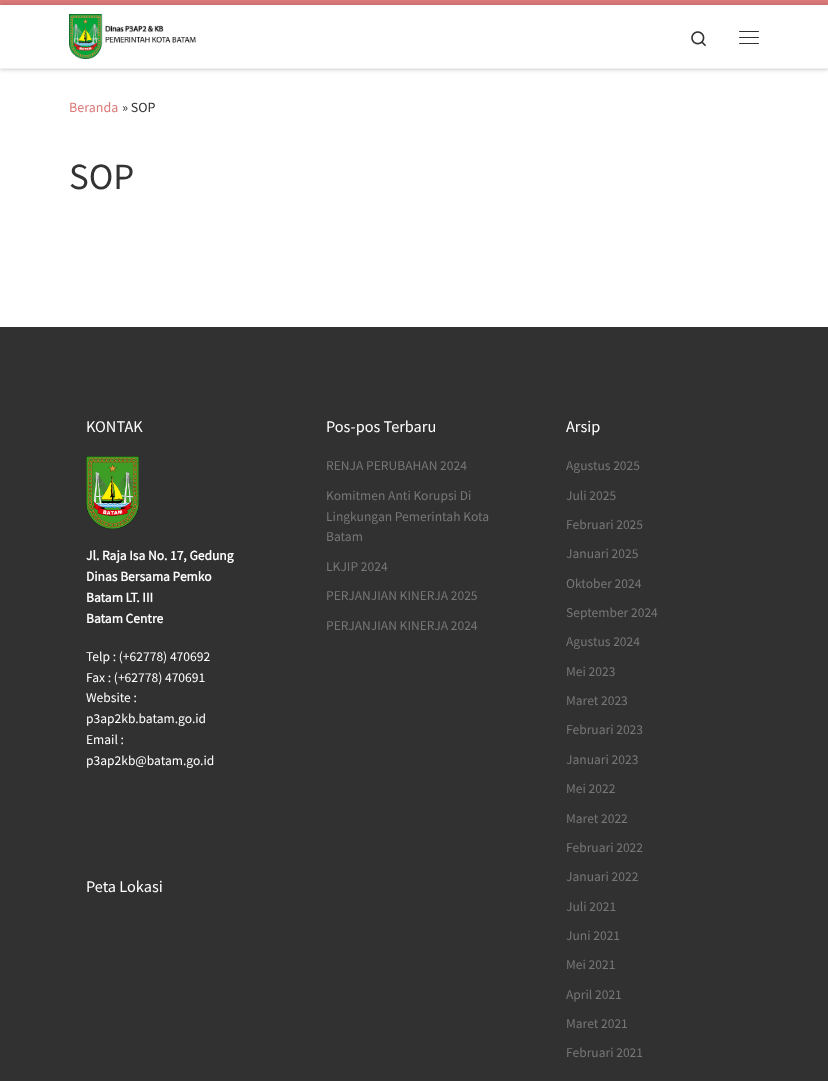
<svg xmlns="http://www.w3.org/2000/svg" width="828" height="1081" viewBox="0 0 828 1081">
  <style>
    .t1 { font: 14px Source Sans Pro; fill: #dd7a7a; }
    .t2 { font: 14px Source Sans Pro; fill: #333; }
    .t3 { font: 37px Source Sans Pro; fill: #333; }
    .t4 { font: 16.25px Source Sans Pro; fill: #fff; }
    .t5 { font: bold 13.5px Source Sans Pro; fill: #fff; }
    .t6 { font: 13.5px Source Sans Pro; fill: #fff; }
    .t7 { font: 13.5px Source Sans Pro; fill: #777; }
  </style>
  <rect width="100%" height="100%" fill="#fff"/>
  <rect x="0" y="2" width="828" height="68" fill="#66666614" filter="blur(1px)"/>
  <rect x="0" y="0" width="828" height="5" fill="#dd7a7a"/>
  <rect x="0" y="5" width="828" height="64" fill="#00000033" filter="blur(2.5px)"/>
  <rect x="0" y="5" width="828" height="63" fill="#fff"/>
  <image x="69" y="14" width="127" height="45" href="images/1.png"/>
  <image x="691" y="31" width="15" height="16" href="images/2.png"/>
  <rect x="739" y="31" width="20" height="1" rx="0.5" fill="#313131"/>
  <rect x="739" y="37" width="20" height="1" rx="0.5" fill="#313131"/>
  <rect x="739" y="43" width="20" height="1" rx="0.5" fill="#313131"/>
  <rect x="0" y="68" width="828" height="1" fill="#f0f0f0"/>
  <text x="69" y="112" class="t1">Beranda</text>
  <text x="122" y="112" class="t2">» SOP</text>
  <text x="69" y="189" class="t3">SOP</text>
  <rect x="0" y="327" width="828" height="754" fill="#313131"/>
  <text x="86" y="432" class="t4">KONTAK</text>
  <image x="86" y="456" width="53" height="73" href="images/3.png"/>
  <text x="86" y="560" class="t5">Jl. Raja Isa No. 17, Gedung</text>
  <text x="86" y="581" class="t5">Dinas Bersama Pemko</text>
  <text x="86" y="602" class="t5">Batam LT. III</text>
  <text x="86" y="623" class="t5">Batam Centre</text>
  <text x="86" y="661" class="t6">Telp : (+62778) 470692</text>
  <text x="86" y="682" class="t6">Fax : (+62778) 470691</text>
  <text x="86" y="702" class="t6">Website :</text>
  <text x="86" y="723" class="t6">p3ap2kb.batam.go.id</text>
  <text x="86" y="744" class="t6">Email :</text>
  <text x="86" y="765" class="t6">p3ap2kb@batam.go.id</text>
  <text x="86" y="892" class="t4">Peta Lokasi</text>
  <text x="326" y="432" class="t4">Pos-pos Terbaru</text>
  <text x="326" y="470" class="t7">RENJA PERUBAHAN 2024</text>
  <text x="326" y="500" class="t7">Komitmen Anti Korupsi Di</text>
  <text x="326" y="521" class="t7">Lingkungan Pemerintah Kota</text>
  <text x="326" y="541" class="t7">Batam</text>
  <text x="326" y="571" class="t7">LKJIP 2024</text>
  <text x="326" y="600" class="t7">PERJANJIAN KINERJA 2025</text>
  <text x="326" y="630" class="t7">PERJANJIAN KINERJA 2024</text>
  <text x="566" y="432" class="t4">Arsip</text>
  <text x="566" y="470" class="t7">Agustus 2025</text>
  <text x="566" y="500" class="t7">Juli 2025</text>
  <text x="566" y="529" class="t7">Februari 2025</text>
  <text x="566" y="558" class="t7">Januari 2025</text>
  <text x="566" y="588" class="t7">Oktober 2024</text>
  <text x="566" y="617" class="t7">September 2024</text>
  <text x="566" y="646" class="t7">Agustus 2024</text>
  <text x="566" y="676" class="t7">Mei 2023</text>
  <text x="566" y="705" class="t7">Maret 2023</text>
  <text x="566" y="734" class="t7">Februari 2023</text>
  <text x="566" y="764" class="t7">Januari 2023</text>
  <text x="566" y="793" class="t7">Mei 2022</text>
  <text x="566" y="823" class="t7">Maret 2022</text>
  <text x="566" y="852" class="t7">Februari 2022</text>
  <text x="566" y="881" class="t7">Januari 2022</text>
  <text x="566" y="911" class="t7">Juli 2021</text>
  <text x="566" y="940" class="t7">Juni 2021</text>
  <text x="566" y="969" class="t7">Mei 2021</text>
  <text x="566" y="999" class="t7">April 2021</text>
  <text x="566" y="1028" class="t7">Maret 2021</text>
  <text x="566" y="1057" class="t7">Februari 2021</text>
</svg>
